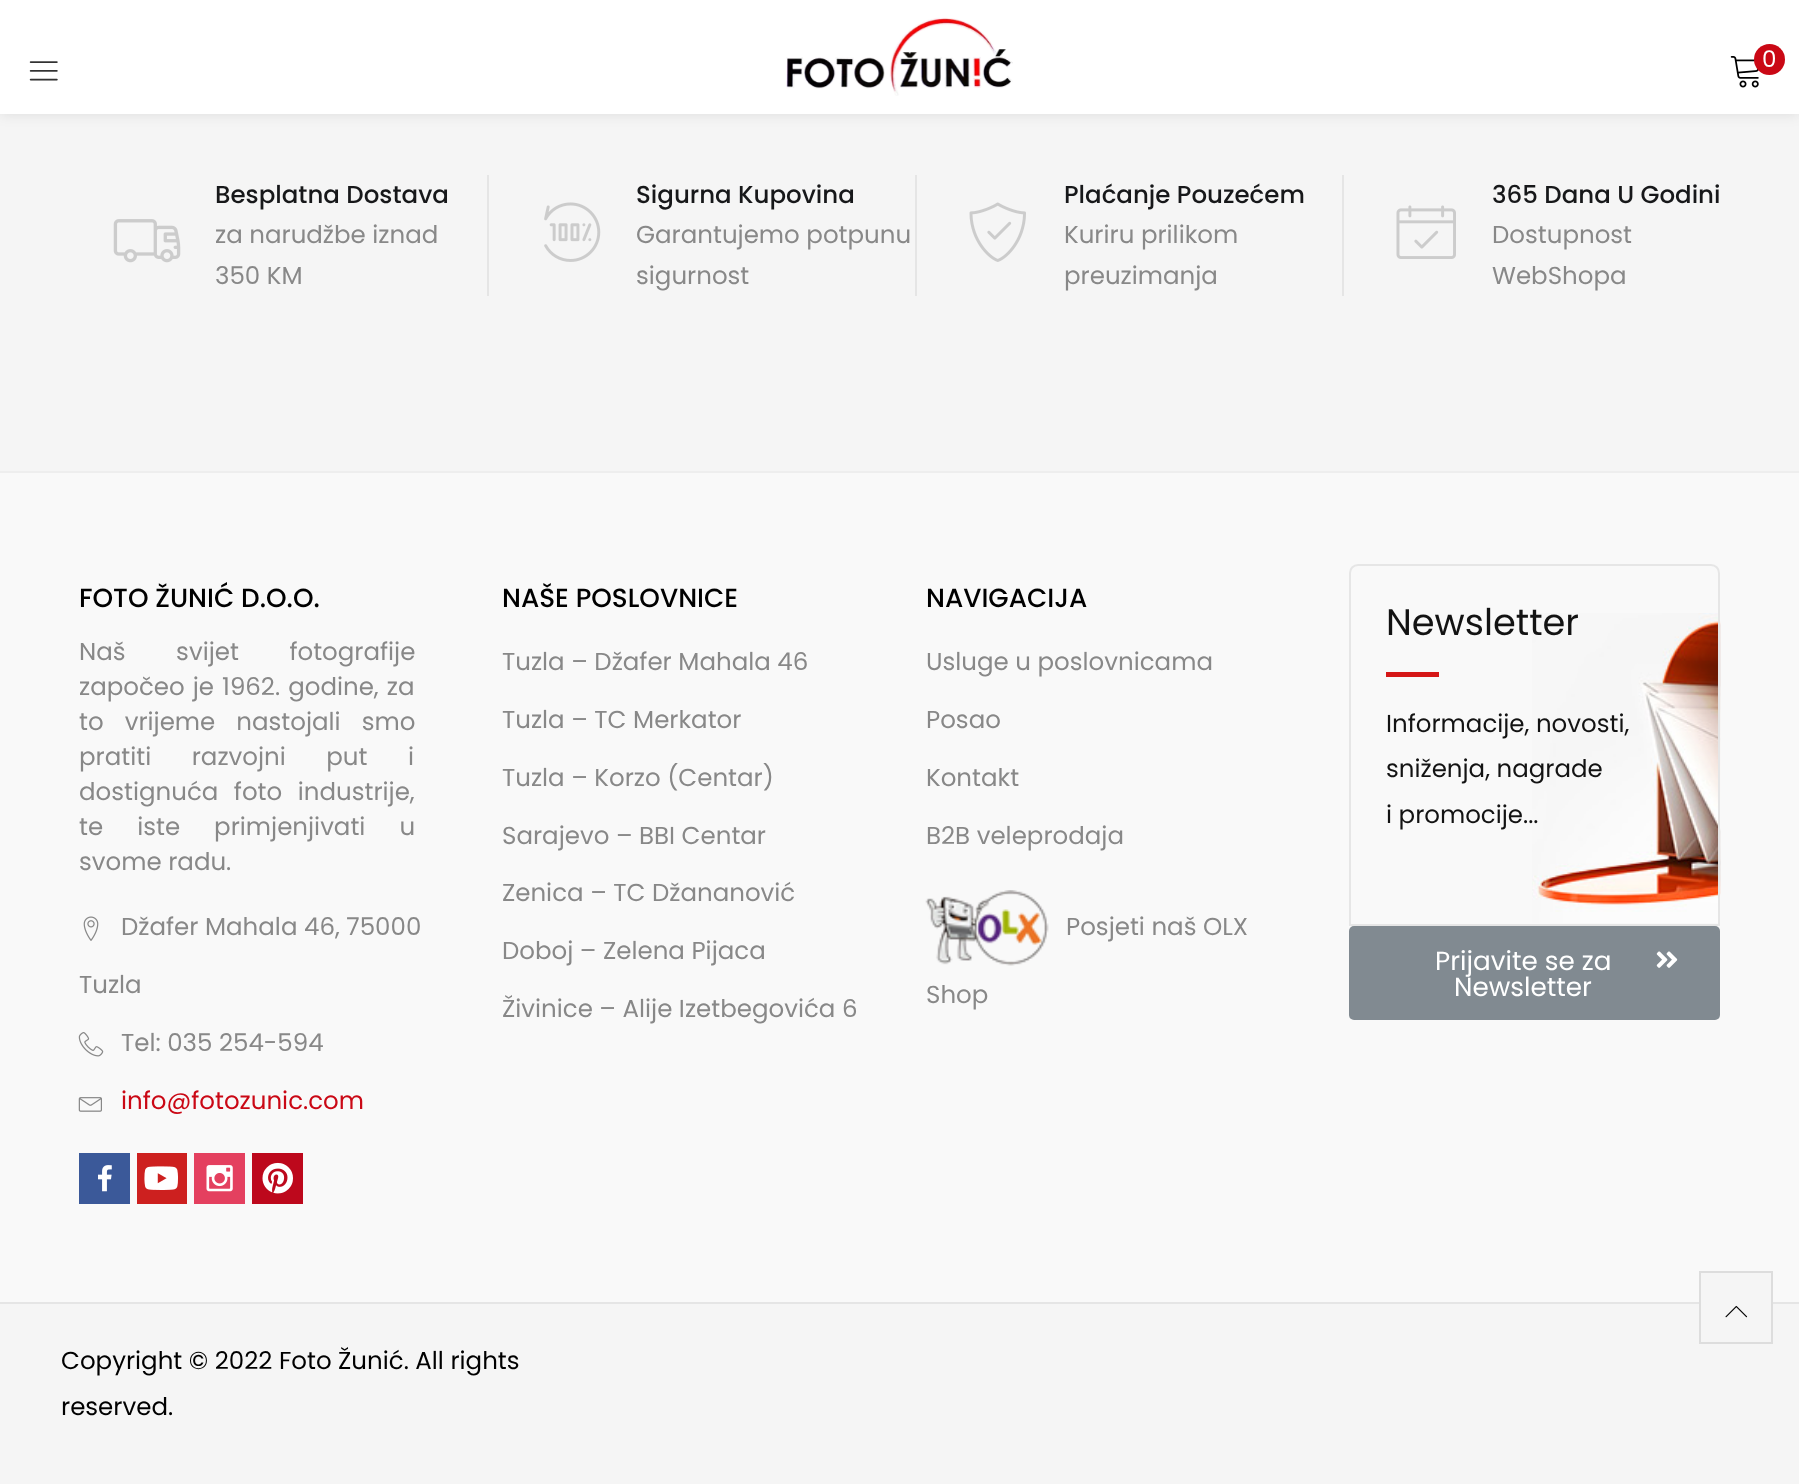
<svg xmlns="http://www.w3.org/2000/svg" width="1799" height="1484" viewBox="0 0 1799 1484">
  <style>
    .t1 { font: 23px Poppins; fill: #fff; }
    .t2 { font: 500 24.5px Poppins; fill: #17181a; }
    .t3 { font: 24.5px Poppins; fill: #888; }
    .t4 { font: 500 26.25px Poppins; fill: #000; }
    .t5 { font: 24.5px Poppins; fill: #ca0815; }
    .t6 { font: 36.75px Poppins; fill: #131313; }
    .t7 { font: 24.5px Poppins; fill: #131313; }
    .t8 { font: 26.25px Poppins; fill: #fff; }
    .t9 { font: 24.5px Poppins; fill: #000; }
  </style>
  <rect width="100%" height="100%" fill="#f5f5f5"/>
  <rect x="0" y="0" width="1799" height="114" fill="#0000001a" filter="blur(7px)"/>
  <rect x="0" y="0" width="1799" height="114" fill="#fff"/>
  <image x="786" y="17" width="227" height="79" href="images/1.png"/>
  <image x="1730" y="56" width="29" height="32" href="images/2.png"/>
  <circle cx="1769.5" cy="59.5" r="15.5" fill="#ca0815"/>
  <text x="1762" y="67" class="t1">0</text>
  <image x="29" y="61" width="29" height="20" href="images/3.png"/>
  <rect x="487" y="175" width="2" height="121" fill="#e5e5e5"/>
  <image x="113" y="219" width="68" height="44" href="images/4.png"/>
  <text x="215" y="203" class="t2">Besplatna Dostava</text>
  <text x="215" y="243" class="t3">za narudžbe iznad</text>
  <text x="215" y="284" class="t3">350 KM</text>
  <rect x="915" y="175" width="2" height="121" fill="#e5e5e5"/>
  <image x="544" y="202" width="57" height="60" href="images/5.png"/>
  <text x="636" y="203" class="t2">Sigurna Kupovina</text>
  <text x="636" y="243" class="t3">Garantujemo potpunu</text>
  <text x="636" y="284" class="t3">sigurnost</text>
  <rect x="1342" y="175" width="2" height="121" fill="#e5e5e5"/>
  <image x="969" y="202" width="57" height="60" href="images/6.png"/>
  <text x="1064" y="203" class="t2">Plaćanje Pouzećem</text>
  <text x="1064" y="243" class="t3">Kuriru prilikom</text>
  <text x="1064" y="284" class="t3">preuzimanja</text>
  <image x="1396" y="205" width="60" height="54" href="images/7.png"/>
  <text x="1492" y="203" class="t2">365 Dana U Godini</text>
  <text x="1492" y="243" class="t3">Dostupnost</text>
  <text x="1492" y="284" class="t3">WebShopa</text>
  <rect x="0" y="473" width="1799" height="829" fill="#f9f9f9"/>
  <rect x="0" y="471" width="1799" height="2" fill="#eee"/>
  <text x="79" y="607" class="t4">FOTO ŽUNIĆ D.O.O.</text>
  <text x="79" y="660" word-spacing="44" class="t3">Naš svijet fotografije</text>
  <text x="79" y="695" word-spacing="1.5" class="t3">započeo je 1962. godine, za</text>
  <text x="79" y="730" word-spacing="14.5" class="t3">to vrijeme nastojali smo</text>
  <text x="79" y="765" word-spacing="34" class="t3">pratiti razvojni put i</text>
  <text x="79" y="800" word-spacing="9" class="t3">dostignuća foto industrije,</text>
  <text x="79" y="835" word-spacing="27.5" class="t3">te iste primjenjivati u</text>
  <text x="79" y="870" class="t3">svome radu.</text>
  <image x="83" y="916" width="16" height="25" href="images/8.png"/>
  <text x="121" y="935" class="t3">Džafer Mahala 46, 75000</text>
  <text x="79" y="993" class="t3">Tuzla</text>
  <image x="78" y="1032" width="26" height="25" href="images/9.png"/>
  <text x="121" y="1051" class="t3">Tel: 035 254-594</text>
  <image x="78" y="1097" width="24" height="15" href="images/10.png"/>
  <text x="121" y="1109" class="t5">info@fotozunic.com</text>
  <rect x="79" y="1153" width="51" height="51" fill="#3b5999"/>
  <image x="98" y="1165" width="14" height="27" href="images/11.png"/>
  <rect x="137" y="1153" width="50" height="51" fill="#cd201f"/>
  <image x="144" y="1166" width="34" height="24" href="images/12.png"/>
  <rect x="194" y="1153" width="51" height="51" fill="#e4405f"/>
  <image x="206" y="1165" width="27" height="27" href="images/13.png"/>
  <rect x="252" y="1153" width="51" height="51" fill="#bd081c"/>
  <image x="262" y="1162" width="31" height="32" href="images/14.png"/>
  <text x="502" y="607" class="t4">NAŠE POSLOVNICE</text>
  <text x="502" y="670" class="t3">Tuzla – Džafer Mahala 46</text>
  <text x="502" y="728" class="t3">Tuzla – TC Merkator</text>
  <text x="502" y="786" class="t3">Tuzla – Korzo (Centar)</text>
  <text x="502" y="844" class="t3">Sarajevo – BBI Centar</text>
  <text x="502" y="901" class="t3">Zenica – TC Džananović</text>
  <text x="502" y="959" class="t3">Doboj – Zelena Pijaca</text>
  <text x="502" y="1017" class="t3">Živinice – Alije Izetbegovića 6</text>
  <text x="926" y="607" class="t4">NAVIGACIJA</text>
  <text x="926" y="670" class="t3">Usluge u poslovnicama</text>
  <text x="926" y="728" class="t3">Posao</text>
  <text x="926" y="786" class="t3">Kontakt</text>
  <text x="926" y="844" class="t3">B2B veleprodaja</text>
  <image x="925" y="890" width="124" height="76" href="images/15.png"/>
  <text x="1066" y="935" class="t3">Posjeti naš OLX</text>
  <text x="926" y="1003" class="t3">Shop</text>
  <image x="1532" y="613" width="189" height="310" href="images/16.png"/>
  <path d="M1358 565H1711C1715.5 565 1719 568.5 1719 573V925H1350V573C1350 568.5 1353.5 565 1358 565Z" fill="none" stroke="#e6e6e6" stroke-width="2"/>
  <text x="1386" y="635" class="t6">Newsletter</text>
  <rect x="1386" y="672" width="53" height="5" fill="#d51717"/>
  <text x="1386" y="732" class="t7">Informacije, novosti,</text>
  <text x="1386" y="777" class="t7">sniženja, nagrade</text>
  <text x="1386" y="823" class="t7">i promocije...</text>
  <rect x="1349" y="926" width="371" height="94" rx="5" fill="#818a91"/>
  <text x="1435" y="970" class="t8">Prijavite se za</text>
  <text x="1454" y="996" class="t8">Newsletter</text>
  <image x="1656" y="951" width="22" height="17" href="images/17.png"/>
  <rect x="0" y="1302" width="1799" height="2" fill="#e5e5e5"/>
  <text x="61" y="1369" class="t9">Copyright © 2022 Foto Žunić. All rights</text>
  <text x="61" y="1415" class="t9">reserved.</text>
  <rect x="1701" y="1273" width="70" height="31" fill="#f5f5f5"/>
  <rect x="1700" y="1272" width="72" height="71" fill="none" stroke="#ddd" stroke-width="2"/>
  <image x="1725" y="1305" width="23" height="13" href="images/18.png"/>
</svg>
